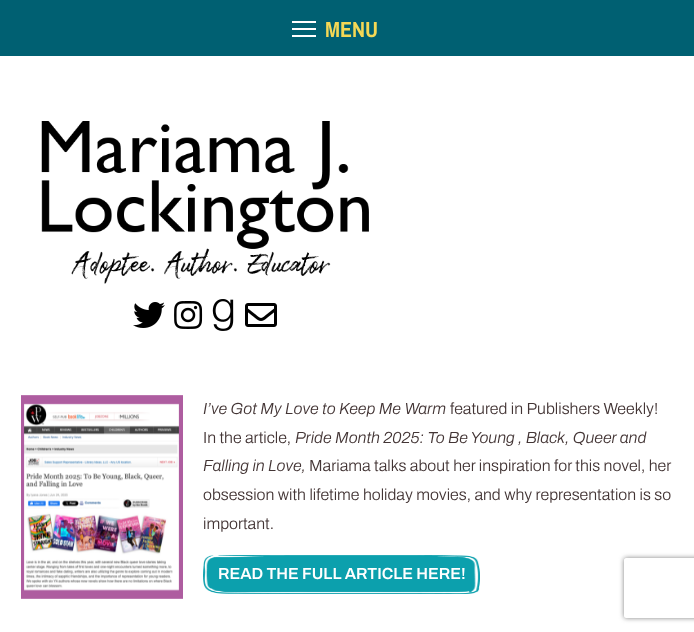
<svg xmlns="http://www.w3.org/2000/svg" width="694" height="632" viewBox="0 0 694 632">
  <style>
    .t1 { font: bold 22px Archivo Narrow; fill: #f4d855; }
    .t2 { font: italic 300 16px Archivo; fill: #433535; }
    .t3 { font: 300 16px Archivo; fill: #433535; }
    .t4 { font: 600 16px Archivo; fill: #fff; }
  </style>
  <defs>
    <clipPath id="clip1"><path d="M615 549H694V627H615ZM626 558H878C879 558 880 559 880 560V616C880 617 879 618 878 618H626C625 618 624 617 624 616V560C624 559 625 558 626 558Z" clip-rule="evenodd"/></clipPath>
  </defs>
  <rect width="100%" height="100%" fill="#fff"/>
  <rect x="0" y="0" width="694" height="56" fill="#006072"/>
  <rect x="292" y="28" width="24" height="2" fill="#fff"/>
  <rect x="292" y="21" width="24" height="2" fill="#fff"/>
  <rect x="292" y="35" width="24" height="2" fill="#fff"/>
  <text x="325" y="37" class="t1">MENU</text>
  <image x="41" y="121" width="328" height="163" href="images/1.png"/>
  <image x="133" y="302" width="32" height="26" href="images/2.png"/>
  <image x="174" y="301" width="29" height="28" href="images/3.png"/>
  <image x="212" y="299" width="22" height="32" href="images/4.png"/>
  <image x="245" y="303" width="32" height="24" href="images/5.png"/>
  <image x="21" y="395" width="162" height="204" href="images/6.png"/>
  <text x="203" y="414" class="t2">I’ve Got My Love to Keep Me Warm</text>
  <text x="450" y="414" class="t3">featured in Publishers Weekly!</text>
  <text x="203" y="443" class="t3">In the article,</text>
  <text x="295" y="443" class="t2">Pride Month 2025: To Be Young , Black, Queer and</text>
  <text x="203" y="471" class="t2">Falling in Love,</text>
  <text x="309" y="471" class="t3">Mariama talks about her inspiration for this novel, her</text>
  <text x="203" y="500" class="t3">obsession with lifetime holiday movies, and why representation is so</text>
  <text x="203" y="529" class="t3">important.</text>
  <image x="203" y="555" width="277" height="39" href="images/7.png"/>
  <text x="218" y="579" class="t4">READ THE FULL ARTICLE HERE!</text>
  <g clip-path="url(#clip1)">
    <rect x="624" y="558" width="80" height="60" rx="2" fill="#808080" filter="blur(2.5px)"/>
  </g>
</svg>
